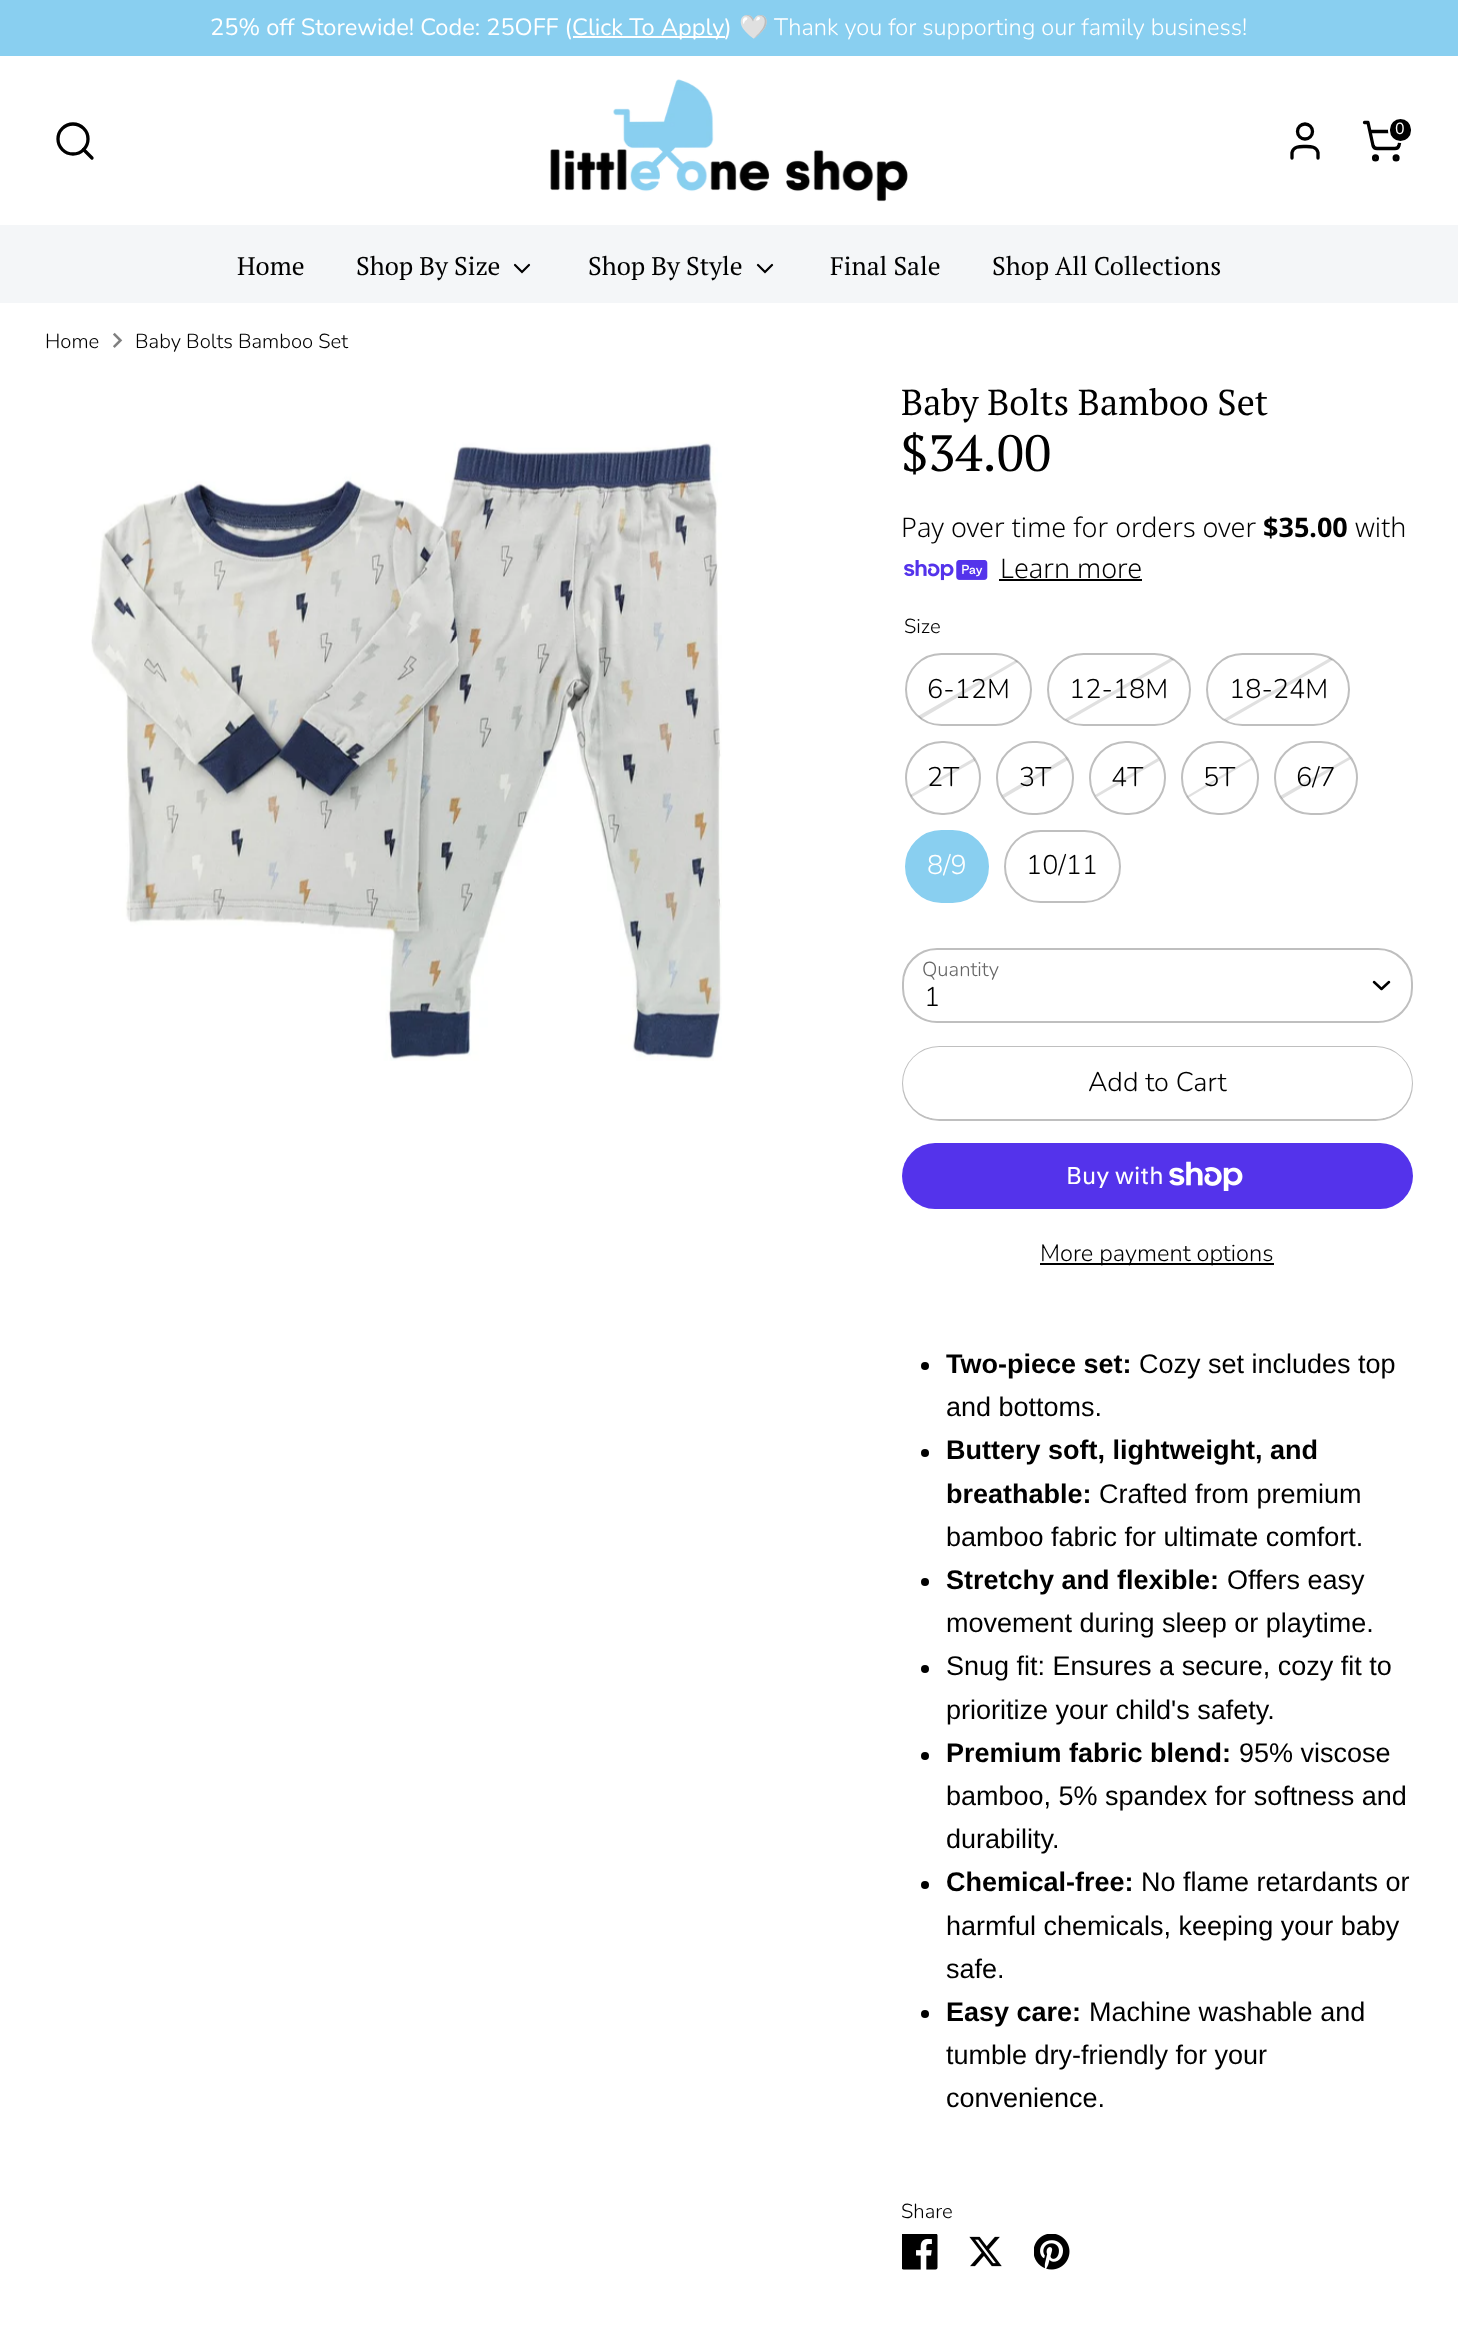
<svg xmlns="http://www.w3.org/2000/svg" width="1458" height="2348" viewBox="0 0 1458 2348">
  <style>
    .t1 { font: 23.6px Nunito; fill: #fff; }
    .t2 { font: 23.6px Noto Color Emoji; fill: #fff; }
    .t3 { font: 300 23.6px Nunito; fill: #fff; }
    .t4 { font: 16px Nunito; fill: #fff; }
    .t5 { font: 25.5px PT Serif; fill: #000; }
    .t6 { font: 300 20.25px Nunito; fill: #000; }
    .t7 { font: 36px PT Serif; fill: #000; }
    .t8 { font: 51px PT Serif; fill: #000; }
    .t9 { font: 300 27px Noto Sans; fill: #000; }
    .t10 { font: bold 27px Noto Sans; fill: #000; }
    .t11 { font: 300 27px Nunito; fill: #000; }
    .t12 { font: 300 27px Nunito; fill: #fff; }
    .t13 { font: 300 20.25px Nunito; fill: #666; }
    .t14 { font: 24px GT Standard; fill: #fff; }
    .t15 { font: 300 23.6px Nunito; fill: #000; }
    .t16 { font: bold 27px Liberation Sans; fill: #000; }
    .t17 { font: 27px Liberation Sans; fill: #000; }
  </style>
  <rect width="100%" height="100%" fill="#fff"/>
  <rect x="0" y="0" width="1458" height="56" fill="#89cff0"/>
  <text x="210" y="35" class="t1">25% off Storewide! Code: 25OFF (</text>
  <rect x="573" y="36" width="152" height="2" fill="#fff"/>
  <text x="572" y="35" class="t1">Click To Apply)</text>
  <text x="739" y="35" class="t2">🤍</text>
  <text x="774" y="35" class="t3">Thank you for supporting our family business!</text>
  <circle cx="73" cy="139" r="15" fill="none" stroke="#000" stroke-width="3.3"/>
  <path d="M92 158L83.5 149.5" fill="none" stroke="#000" stroke-width="3.3" stroke-linecap="round" stroke-linejoin="round"/>
  <image x="550" y="79" width="358" height="123" href="images/1.png"/>
  <path d="M1318 158V152.5C1316.5 146 1310 146.5 1305 146.5C1300 146.5 1293.5 146 1292 152.5V158" fill="none" stroke="#000" stroke-width="3.3" stroke-linecap="round" stroke-linejoin="round"/>
  <circle cx="1305" cy="131.5" r="7.5" fill="none" stroke="#000" stroke-width="3.3"/>
  <circle cx="1375.5" cy="157.9" r="1.9" fill="none" stroke="#000" stroke-width="3.3"/>
  <circle cx="1396.1" cy="157.9" r="1.9" fill="none" stroke="#000" stroke-width="3.3"/>
  <path d="M1364.5 122.5H1368L1373 145.5C1373.5 147.5 1375 148.5 1377 148.5H1395C1397 148.5 1398.5 147.5 1399 145.5L1402 131.5H1370" fill="none" stroke="#000" stroke-width="3.3" stroke-linecap="round" stroke-linejoin="round"/>
  <rect x="1389" y="118" width="23" height="24" rx="11.5" fill="#000" stroke="#fff" stroke-width="2"/>
  <text x="1395" y="134" class="t4">0</text>
  <rect x="0" y="225" width="1458" height="78" fill="#f4f6f8"/>
  <text x="237" y="275" class="t5">Home</text>
  <text x="356" y="275" class="t5">Shop By Size</text>
  <path d="M515 265L522 272L529 265" fill="none" stroke="#000" stroke-width="2.2" stroke-linecap="round"/>
  <text x="588" y="275" class="t5">Shop By Style</text>
  <path d="M758 265L765 272L772 265" fill="none" stroke="#000" stroke-width="2.2" stroke-linecap="round"/>
  <text x="830" y="275" class="t5">Final Sale</text>
  <text x="992" y="275" class="t5">Shop All Collections</text>
  <text x="45" y="348" class="t6">Home</text>
  <image x="113" y="332" width="10" height="16" href="images/2.png"/>
  <text x="135" y="348" class="t6">Baby Bolts Bamboo Set</text>
  <image x="91" y="440" width="631" height="621" href="images/3.png"/>
  <text x="901" y="415" class="t7">Baby Bolts Bamboo Set</text>
  <text x="901" y="471" class="t8">$34.00</text>
  <text x="901" y="537" class="t9">Pay over time for orders over</text>
  <text x="1263" y="537" class="t10">$35.00</text>
  <text x="1355" y="537" class="t9">with</text>
  <image x="904" y="560" width="84" height="21" href="images/4.png"/>
  <text x="1000" y="578" class="t9">Learn more</text>
  <rect x="999" y="579" width="143" height="2" fill="#000"/>
  <text x="904" y="633" class="t6">Size</text>
  <rect x="906" y="654" width="125" height="71" rx="35.5" fill="none" stroke="#bfbfbf" stroke-width="2"/>
  <path d="M1018 662L921 719L918 716L1016 660Z" fill="#0000001f"/>
  <text x="927" y="698" class="t11">6-12M</text>
  <rect x="1048" y="654" width="142" height="71" rx="35.5" fill="none" stroke="#bfbfbf" stroke-width="2"/>
  <path d="M1174 660L1068 721L1065 719L1171 658Z" fill="#0000001f"/>
  <text x="1069" y="698" class="t11">12-18M</text>
  <rect x="1207" y="654" width="142" height="71" rx="35.5" fill="none" stroke="#bfbfbf" stroke-width="2"/>
  <path d="M1333 660L1227 721L1224 719L1330 658Z" fill="#0000001f"/>
  <text x="1229" y="698" class="t11">18-24M</text>
  <rect x="906" y="742" width="74" height="72" rx="36" fill="none" stroke="#bfbfbf" stroke-width="2"/>
  <path d="M912 797L910 795L974 758L975 761Z" fill="#0000001f"/>
  <text x="927" y="786" class="t11">2T</text>
  <rect x="997" y="742" width="76" height="72" rx="36" fill="none" stroke="#bfbfbf" stroke-width="2"/>
  <path d="M1004 798L1002 795L1066 757L1068 760Z" fill="#0000001f"/>
  <text x="1019" y="786" class="t11">3T</text>
  <rect x="1090" y="742" width="75" height="72" rx="36" fill="none" stroke="#bfbfbf" stroke-width="2"/>
  <path d="M1097 797L1095 795L1158 758L1159 761Z" fill="#0000001f"/>
  <text x="1111" y="786" class="t11">4T</text>
  <rect x="1182" y="742" width="76" height="72" rx="36" fill="none" stroke="#bfbfbf" stroke-width="2"/>
  <path d="M1188 798L1187 796L1251 758L1252 760Z" fill="#0000001f"/>
  <text x="1203" y="786" class="t11">5T</text>
  <rect x="1275" y="742" width="82" height="72" rx="36" fill="none" stroke="#bfbfbf" stroke-width="2"/>
  <path d="M1282 799L1280 796L1349 757L1351 759Z" fill="#0000001f"/>
  <text x="1296" y="786" class="t11">6/7</text>
  <rect x="906" y="831" width="82" height="71" rx="35.5" fill="#89cff0" stroke="#89cff0" stroke-width="2"/>
  <text x="927" y="874" class="t12">8/9</text>
  <rect x="1005" y="831" width="115" height="71" rx="35.5" fill="none" stroke="#bfbfbf" stroke-width="2"/>
  <text x="1026" y="874" class="t11">10/11</text>
  <text x="922" y="976" class="t13">Quantity</text>
  <rect x="903" y="949" width="509" height="73" rx="34" fill="none" stroke="#bfbfbf" stroke-width="2"/>
  <text x="924" y="1006" class="t11">1</text>
  <path d="M1374 982L1381.5 989L1389 982" fill="none" stroke="#000" stroke-width="2.5" stroke-linecap="round" stroke-linejoin="round"/>
  <rect x="903" y="1047" width="509" height="73" rx="36.5" fill="none" stroke="#bfbfbf" stroke-width="2"/>
  <rect x="903" y="1047" width="509" height="72" rx="36" fill="#fff"/>
  <text x="1088" y="1091" class="t11">Add to Cart</text>
  <rect x="902" y="1143" width="511" height="66" rx="33" fill="#5433eb"/>
  <text x="1066" y="1184" class="t14">Buy with</text>
  <image x="1169" y="1161" width="74" height="30" href="images/5.png"/>
  <rect x="1040" y="1263" width="234" height="2" fill="#000"/>
  <text x="1040" y="1261" class="t15">More payment options</text>
  <circle cx="925" cy="1366" r="4" fill="#000"/>
  <text x="946" y="1373" class="t16">Two-piece set:</text>
  <text x="1139" y="1373" class="t17">Cozy set includes top</text>
  <text x="946" y="1416" class="t17">and bottoms.</text>
  <circle cx="925" cy="1453" r="4" fill="#000"/>
  <text x="946" y="1459" class="t16">Buttery soft, lightweight, and</text>
  <text x="946" y="1503" class="t16">breathable:</text>
  <text x="1099" y="1503" class="t17">Crafted from premium</text>
  <text x="946" y="1546" class="t17">bamboo fabric for ultimate comfort.</text>
  <circle cx="925" cy="1582" r="4" fill="#000"/>
  <text x="946" y="1589" class="t16">Stretchy and flexible:</text>
  <text x="1227" y="1589" class="t17">Offers easy</text>
  <text x="946" y="1632" class="t17">movement during sleep or playtime.</text>
  <circle cx="925" cy="1669" r="4" fill="#000"/>
  <text x="946" y="1675" class="t17">Snug fit: Ensures a secure, cozy fit to</text>
  <text x="946" y="1719" class="t17">prioritize your child's safety.</text>
  <circle cx="925" cy="1756" r="4" fill="#000"/>
  <text x="946" y="1762" class="t16">Premium fabric blend:</text>
  <text x="1239" y="1762" class="t17">95% viscose</text>
  <text x="946" y="1805" class="t17">bamboo, 5% spandex for softness and</text>
  <text x="946" y="1848" class="t17">durability.</text>
  <circle cx="925" cy="1885" r="4" fill="#000"/>
  <text x="946" y="1891" class="t16">Chemical-free:</text>
  <text x="1141" y="1891" class="t17">No flame retardants or</text>
  <text x="946" y="1935" class="t17">harmful chemicals, keeping your baby</text>
  <text x="946" y="1978" class="t17">safe.</text>
  <circle cx="925" cy="2014" r="4" fill="#000"/>
  <text x="946" y="2021" class="t16">Easy care:</text>
  <text x="1089" y="2021" class="t17">Machine washable and</text>
  <text x="946" y="2064" class="t17">tumble dry-friendly for your</text>
  <text x="946" y="2107" class="t17">convenience.</text>
  <text x="901" y="2218" class="t6">Share</text>
  <image x="902" y="2234" width="36" height="36" href="images/6.png"/>
  <image x="969" y="2236" width="33" height="31" href="images/7.png"/>
  <image x="1034" y="2234" width="36" height="36" href="images/8.png"/>
</svg>
